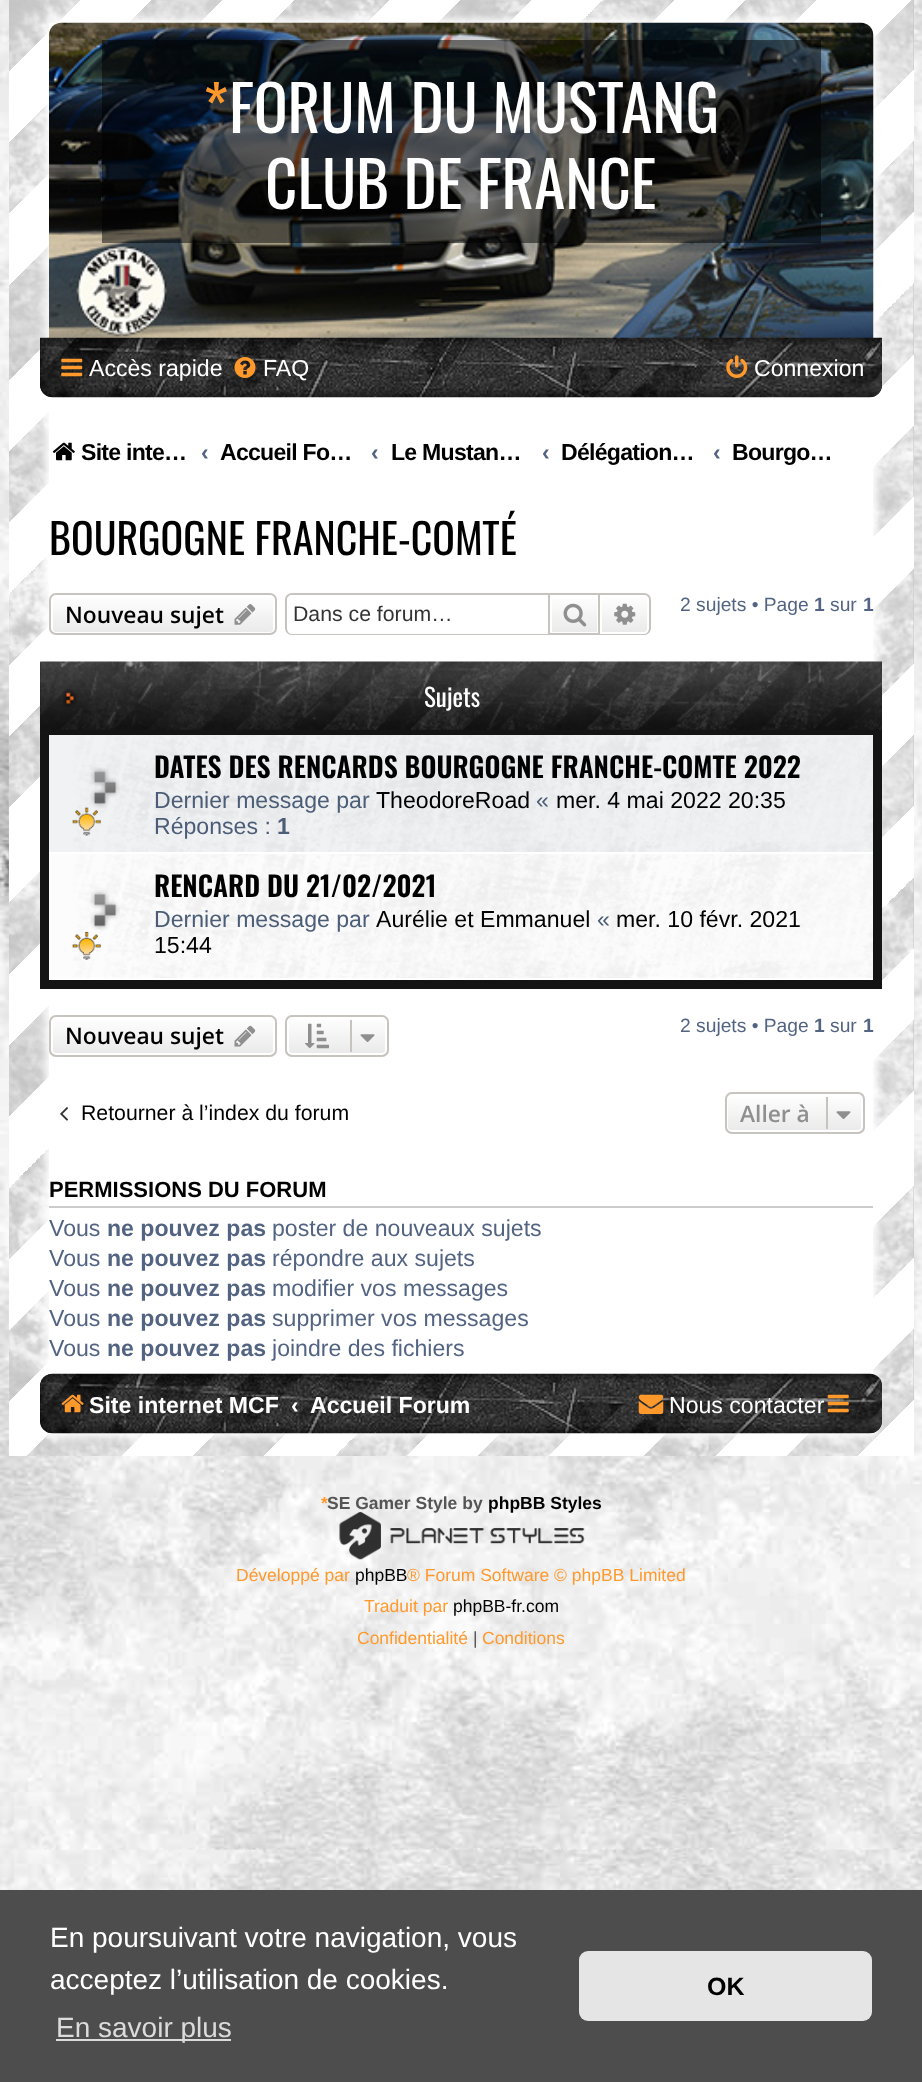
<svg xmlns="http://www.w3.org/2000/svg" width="922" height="2082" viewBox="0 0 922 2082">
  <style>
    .t1 { font: 63px Oswald; fill: #ff992c; }
    .t2 { font: 63px Oswald; fill: #fff; }
    .t3 { font: 23.1px Liberation Sans; fill: #fff; }
    .t4 { font: bold 23.1px Liberation Sans; letter-spacing: -0.75px; fill: #000; }
    .t5 { font: bold 23.1px Liberation Sans; fill: #536482; }
    .t6 { font: 42px Oswald; fill: #000; }
    .t7 { font: 600 22.75px Open Sans; fill: #000; }
    .t8 { font: 21.25px Liberation Sans; fill: #333; }
    .t9 { font: 19.25px Liberation Sans; fill: #536482; }
    .t10 { font: bold 19.25px Liberation Sans; fill: #536482; }
    .t11 { font: 25px Oswald; fill: #fff; }
    .t12 { font: 600 27.75px Oswald; fill: #000; }
    .t13 { font: 23.1px Liberation Sans; fill: #4c5d77; }
    .t14 { font: 23.1px Liberation Sans; fill: #000; }
    .t15 { font: bold 23.1px Liberation Sans; fill: #4c5d77; }
    .t16 { font: 21.25px Liberation Sans; fill: #000; }
    .t17 { font: 600 22.75px Open Sans; fill: #8f8f8f; }
    .t18 { font: bold 22px Liberation Sans; fill: #000; }
    .t19 { font: 23.1px Liberation Sans; fill: #536482; }
    .t20 { font: bold 23.1px Liberation Sans; fill: #fff; }
    .t21 { font: bold 17.5px Liberation Sans; fill: #ff992c; }
    .t22 { font: bold 17.5px Liberation Sans; fill: #555; }
    .t23 { font: bold 17.5px Liberation Sans; fill: #000; }
    .t24 { font: 17.5px Liberation Sans; fill: #ff992c; }
    .t25 { font: 17.5px Liberation Sans; fill: #000; }
    .t26 { font: 17.5px Liberation Sans; fill: #555; }
    .t27 { font: 28px Liberation Sans; fill: #fff; }
    .t28 { font: 28px Liberation Sans; fill: #dbdbdb; }
    .t29 { font: bold 25px Liberation Sans; fill: #000; }
  </style>
  <defs>
    <linearGradient id="g1" gradientUnits="userSpaceOnUse" x1="-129" y1="138" x2="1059" y2="1326"><stop offset="0" stop-color="#c5c5c5"/><stop offset="0.03" stop-color="#c5c5c5"/><stop offset="0.03" stop-color="#fff"/><stop offset="0.06" stop-color="#fff"/><stop offset="0.06" stop-color="#c5c5c5"/><stop offset="0.09" stop-color="#c5c5c5"/><stop offset="0.09" stop-color="#fff"/><stop offset="0.12" stop-color="#fff"/><stop offset="0.12" stop-color="#c5c5c5"/><stop offset="0.16" stop-color="#c5c5c5"/><stop offset="0.16" stop-color="#fff"/><stop offset="0.19" stop-color="#fff"/><stop offset="0.19" stop-color="#c5c5c5"/><stop offset="0.22" stop-color="#c5c5c5"/><stop offset="0.22" stop-color="#fff"/><stop offset="0.25" stop-color="#fff"/><stop offset="0.25" stop-color="#c5c5c5"/><stop offset="0.28" stop-color="#c5c5c5"/><stop offset="0.28" stop-color="#fff"/><stop offset="0.31" stop-color="#fff"/><stop offset="0.31" stop-color="#c5c5c5"/><stop offset="0.34" stop-color="#c5c5c5"/><stop offset="0.34" stop-color="#fff"/><stop offset="0.38" stop-color="#fff"/><stop offset="0.38" stop-color="#c5c5c5"/><stop offset="0.41" stop-color="#c5c5c5"/><stop offset="0.41" stop-color="#fff"/><stop offset="0.44" stop-color="#fff"/><stop offset="0.44" stop-color="#c5c5c5"/><stop offset="0.47" stop-color="#c5c5c5"/><stop offset="0.47" stop-color="#fff"/><stop offset="0.5" stop-color="#fff"/><stop offset="0.5" stop-color="#c5c5c5"/><stop offset="0.53" stop-color="#c5c5c5"/><stop offset="0.53" stop-color="#fff"/><stop offset="0.56" stop-color="#fff"/><stop offset="0.56" stop-color="#c5c5c5"/><stop offset="0.59" stop-color="#c5c5c5"/><stop offset="0.59" stop-color="#fff"/><stop offset="0.62" stop-color="#fff"/><stop offset="0.62" stop-color="#c5c5c5"/><stop offset="0.66" stop-color="#c5c5c5"/><stop offset="0.66" stop-color="#fff"/><stop offset="0.69" stop-color="#fff"/><stop offset="0.69" stop-color="#c5c5c5"/><stop offset="0.72" stop-color="#c5c5c5"/><stop offset="0.72" stop-color="#fff"/><stop offset="0.75" stop-color="#fff"/><stop offset="0.75" stop-color="#c5c5c5"/><stop offset="0.78" stop-color="#c5c5c5"/><stop offset="0.78" stop-color="#fff"/><stop offset="0.81" stop-color="#fff"/><stop offset="0.81" stop-color="#c5c5c5"/><stop offset="0.84" stop-color="#c5c5c5"/><stop offset="0.84" stop-color="#fff"/><stop offset="0.88" stop-color="#fff"/><stop offset="0.88" stop-color="#c5c5c5"/><stop offset="0.91" stop-color="#c5c5c5"/><stop offset="0.91" stop-color="#fff"/><stop offset="0.94" stop-color="#fff"/><stop offset="0.94" stop-color="#c5c5c5"/><stop offset="0.97" stop-color="#c5c5c5"/><stop offset="0.97" stop-color="#fff"/><stop offset="1" stop-color="#fff"/></linearGradient>
    <clipPath id="clip1"><rect x="49" y="593" width="228" height="42" rx="7"/></clipPath>
    <linearGradient id="g2" gradientUnits="userSpaceOnUse" x1="163" y1="595" x2="163" y2="634"><stop offset="0" stop-color="#fff"/><stop offset="1" stop-color="#e9e9e9"/></linearGradient>
    <linearGradient id="g3" gradientUnits="userSpaceOnUse" x1="574" y1="595" x2="574" y2="634"><stop offset="0" stop-color="#fff"/><stop offset="1" stop-color="#e9e9e9"/></linearGradient>
    <linearGradient id="g4" gradientUnits="userSpaceOnUse" x1="625" y1="595" x2="625" y2="634"><stop offset="0" stop-color="#fff"/><stop offset="1" stop-color="#e9e9e9"/></linearGradient>
    <clipPath id="clip2"><rect x="49" y="1015" width="228" height="42" rx="7"/></clipPath>
    <linearGradient id="g5" gradientUnits="userSpaceOnUse" x1="163" y1="1017" x2="163" y2="1055"><stop offset="0" stop-color="#fff"/><stop offset="1" stop-color="#e9e9e9"/></linearGradient>
    <clipPath id="clip3"><rect x="285" y="1015" width="104" height="42" rx="7"/></clipPath>
    <linearGradient id="g6" gradientUnits="userSpaceOnUse" x1="337" y1="1017" x2="337" y2="1055"><stop offset="0" stop-color="#fff"/><stop offset="1" stop-color="#e9e9e9"/></linearGradient>
    <clipPath id="clip4"><rect x="725" y="1092" width="140" height="42" rx="7"/></clipPath>
    <linearGradient id="g7" gradientUnits="userSpaceOnUse" x1="795" y1="1094" x2="795" y2="1132"><stop offset="0" stop-color="#fff"/><stop offset="1" stop-color="#e9e9e9"/></linearGradient>
    <clipPath id="clip5"><rect x="58" y="1379" width="220" height="51"/></clipPath>
  </defs>
  <rect width="100%" height="100%" fill="#fff"/>
  <image x="0" y="1696" width="922" height="194" href="images/1.png"/>
  <image x="0" y="0" width="922" height="1696" href="images/2.png"/>
  <rect x="9" y="0" width="905" height="1456" fill="url(#g1)"/>
  <image x="8" y="0" width="906" height="1456" href="images/3.png"/>
  <rect x="46" y="19" width="831" height="1418" fill="#fff" filter="blur(4.5px)"/>
  <rect x="49" y="23" width="824" height="1410" fill="#fff"/>
  <image x="49" y="22" width="825" height="316" href="images/4.png"/>
  <rect x="102" y="40" width="719" height="203" fill="#00000080"/>
  <text x="203" y="133" class="t1">*</text>
  <text x="229" y="133" class="t2">FORUM DU MUSTANG</text>
  <text x="265" y="209" class="t2">CLUB DE FRANCE</text>
  <path d="M40 338H882V385C882 391.5 876.5 397 870 397H52C45.5 397 40 391.5 40 385Z" fill="#000"/>
  <image x="40" y="337" width="842" height="61" href="images/5.png"/>
  <image x="61" y="358" width="22" height="19" href="images/6.png"/>
  <text x="89" y="376" class="t3">Accès rapide</text>
  <image x="234" y="357" width="22" height="21" href="images/7.png"/>
  <text x="263" y="376" class="t3">FAQ</text>
  <image x="726" y="355" width="22" height="23" href="images/8.png"/>
  <text x="754" y="376" class="t3">Connexion</text>
  <image x="52" y="442" width="23" height="19" href="images/9.png"/>
  <text x="81" y="460" class="t4">Site inte…</text>
  <text x="201" y="460" class="t5">‹</text>
  <text x="220" y="460" class="t4">Accueil Fo…</text>
  <text x="371" y="460" class="t5">‹</text>
  <text x="391" y="460" class="t4">Le Mustan…</text>
  <text x="542" y="460" class="t5">‹</text>
  <text x="561" y="460" class="t4">Délégation…</text>
  <text x="713" y="460" class="t5">‹</text>
  <text x="732" y="460" class="t4">Bourgo…</text>
  <text x="49" y="555" class="t6">BOURGOGNE FRANCHE-COMTÉ</text>
  <g clip-path="url(#clip1)">
    <rect x="49" y="595" width="228" height="39" fill="url(#g2)"/>
  </g>
  <rect x="52" y="596" width="222" height="37" rx="4" fill="none" stroke="#fff" stroke-width="2"/>
  <rect x="50" y="594" width="226" height="40" rx="6" fill="none" stroke="#c7c3bf" stroke-width="2"/>
  <text x="65" y="623" class="t7">Nouveau sujet</text>
  <image x="234" y="604" width="22" height="21" href="images/10.png"/>
  <path d="M292 593H548V635H292C288 635 285 632 285 628V600C285 596 288 593 292 593ZM292 595H548V634H292C289 634 287 631 287 628V600C287 597 289 595 292 595Z" fill="#c7c3bf" fill-rule="evenodd"/>
  <text x="293" y="621" class="t8">Dans ce forum…</text>
  <rect x="552" y="599" width="45" height="33" fill="url(#g3)"/>
  <rect x="549" y="594" width="50" height="40" fill="none" stroke="#c7c3bf" stroke-width="2"/>
  <image x="563" y="603" width="24" height="24" href="images/11.png"/>
  <path d="M601 596H644C646 596 648 598 648 600V629C648 631 646 633 644 633H601Z" fill="url(#g4)" stroke="#fff" stroke-width="2"/>
  <path d="M600 593H644C648 593 651 596 651 600V628C651 632 648 635 644 635H600ZM600 595H644C647 595 649 597 649 600V628C649 631 647 634 644 634H600Z" fill="#c7c3bf" fill-rule="evenodd"/>
  <image x="614" y="603" width="22" height="22" href="images/12.png"/>
  <text x="680" y="611" class="t9">2 sujets • Page</text>
  <text x="814" y="611" class="t10">1</text>
  <text x="830" y="611" class="t9">sur</text>
  <text x="863" y="611" class="t10">1</text>
  <rect x="40" y="662" width="842" height="327" fill="#141414"/>
  <image x="40" y="661" width="842" height="69" href="images/13.png"/>
  <image x="63" y="689" width="14" height="18" href="images/14.png"/>
  <text x="424" y="707" class="t11">Sujets</text>
  <rect x="49" y="735" width="824" height="117" fill="#f1f2f4"/>
  <image x="73" y="735" width="800" height="117" href="images/15.png"/>
  <rect x="49" y="852" width="824" height="2" fill="#fff"/>
  <image x="90" y="767" width="30" height="41" href="images/16.png"/>
  <image x="72" y="807" width="29" height="29" href="images/17.png"/>
  <text x="154" y="778" class="t12">DATES DES RENCARDS BOURGOGNE FRANCHE-COMTE 2022</text>
  <text x="154" y="808" class="t13">Dernier message par</text>
  <text x="376" y="808" class="t14">TheodoreRoad</text>
  <text x="536" y="808" class="t13">«</text>
  <text x="556" y="808" class="t14">mer. 4 mai 2022 20:35</text>
  <text x="154" y="834" class="t13">Réponses :</text>
  <text x="277" y="834" class="t15">1</text>
  <rect x="49" y="854" width="824" height="124" fill="#fcfcfc"/>
  <image x="73" y="854" width="800" height="124" href="images/18.png"/>
  <rect x="49" y="978" width="824" height="2" fill="#fff"/>
  <image x="90" y="890" width="30" height="40" href="images/19.png"/>
  <image x="72" y="931" width="29" height="29" href="images/20.png"/>
  <text x="154" y="897" class="t12">RENCARD DU 21/02/2021</text>
  <text x="154" y="927" class="t13">Dernier message par</text>
  <text x="376" y="927" class="t14">Aurélie et Emmanuel</text>
  <text x="597" y="927" class="t13">«</text>
  <text x="616" y="927" class="t14">mer. 10 févr. 2021</text>
  <text x="154" y="953" class="t14">15:44</text>
  <g clip-path="url(#clip2)">
    <rect x="49" y="1017" width="228" height="38" fill="url(#g5)"/>
  </g>
  <rect x="52" y="1018" width="222" height="36" rx="4" fill="none" stroke="#fff" stroke-width="2"/>
  <rect x="50" y="1016" width="226" height="40" rx="6" fill="none" stroke="#c7c3bf" stroke-width="2"/>
  <text x="65" y="1044" class="t7">Nouveau sujet</text>
  <image x="234" y="1025" width="22" height="22" href="images/21.png"/>
  <g clip-path="url(#clip3)">
    <rect x="285" y="1017" width="104" height="38" fill="url(#g6)"/>
  </g>
  <rect x="288" y="1018" width="98" height="36" rx="4" fill="none" stroke="#fff" stroke-width="2"/>
  <rect x="286" y="1016" width="102" height="40" rx="6" fill="none" stroke="#c7c3bf" stroke-width="2"/>
  <image x="305" y="1023" width="24" height="26" href="images/22.png"/>
  <rect x="350" y="1020" width="2" height="32" fill="#c7c3bf"/>
  <image x="360" y="1034" width="15" height="8" href="images/23.png"/>
  <text x="680" y="1032" class="t9">2 sujets • Page</text>
  <text x="814" y="1032" class="t10">1</text>
  <text x="830" y="1032" class="t9">sur</text>
  <text x="863" y="1032" class="t10">1</text>
  <image x="60" y="1107" width="8" height="14" href="images/24.png"/>
  <text x="81" y="1120" class="t16">Retourner à l’index du forum</text>
  <g clip-path="url(#clip4)">
    <rect x="725" y="1094" width="140" height="38" fill="url(#g7)"/>
  </g>
  <rect x="727" y="1095" width="135" height="36" rx="4" fill="none" stroke="#fff" stroke-width="2"/>
  <rect x="726" y="1093" width="138" height="40" rx="6" fill="none" stroke="#c7c3bf" stroke-width="2"/>
  <text x="740" y="1122" class="t17">Aller à</text>
  <rect x="826" y="1097" width="2" height="32" fill="#c7c3bf"/>
  <image x="836" y="1111" width="15" height="8" href="images/23.png"/>
  <rect x="49" y="1206" width="824" height="2" fill="#ccc"/>
  <text x="49" y="1197" class="t18">PERMISSIONS DU FORUM</text>
  <text x="49" y="1236" class="t19">Vous</text>
  <text x="107" y="1236" class="t5">ne pouvez pas</text>
  <text x="272" y="1236" class="t19">poster de nouveaux sujets</text>
  <text x="49" y="1266" class="t19">Vous</text>
  <text x="107" y="1266" class="t5">ne pouvez pas</text>
  <text x="272" y="1266" class="t19">répondre aux sujets</text>
  <text x="49" y="1296" class="t19">Vous</text>
  <text x="107" y="1296" class="t5">ne pouvez pas</text>
  <text x="272" y="1296" class="t19">modifier vos messages</text>
  <text x="49" y="1326" class="t19">Vous</text>
  <text x="107" y="1326" class="t5">ne pouvez pas</text>
  <text x="272" y="1326" class="t19">supprimer vos messages</text>
  <text x="49" y="1356" class="t19">Vous</text>
  <text x="107" y="1356" class="t5">ne pouvez pas</text>
  <text x="272" y="1356" class="t19">joindre des fichiers</text>
  <rect x="40" y="1374" width="842" height="59" rx="12" fill="#000"/>
  <image x="40" y="1373" width="842" height="61" href="images/25.png"/>
  <image x="61" y="1394" width="23" height="19" href="images/26.png"/>
  <g clip-path="url(#clip5)">
    <text x="89" y="1413" class="t20">Site internet MCF</text>
  </g>
  <text x="291" y="1413" class="t20">‹</text>
  <text x="310" y="1413" class="t20">Accueil Forum</text>
  <image x="638" y="1394" width="26" height="20" href="images/27.png"/>
  <text x="669" y="1413" class="t3">Nous contacter</text>
  <image x="827" y="1394" width="22" height="19" href="images/28.png"/>
  <text x="321" y="1509" class="t21">*</text>
  <text x="327" y="1509" class="t22">SE Gamer Style by</text>
  <text x="488" y="1509" class="t23">phpBB Styles</text>
  <image x="339" y="1512" width="246" height="48" href="images/29.png"/>
  <text x="236" y="1581" class="t24">Développé par</text>
  <text x="355" y="1581" class="t25">phpBB</text>
  <text x="407" y="1581" class="t24">® Forum Software © phpBB Limited</text>
  <text x="364" y="1612" class="t24">Traduit par</text>
  <text x="453" y="1612" class="t25">phpBB-fr.com</text>
  <text x="357" y="1644" class="t24">Confidentialité</text>
  <text x="473" y="1644" class="t26">|</text>
  <text x="482" y="1644" class="t24">Conditions</text>
  <rect x="0" y="1890" width="922" height="192" fill="#4d4d4d"/>
  <text x="50" y="1947" class="t27">En poursuivant votre navigation, vous</text>
  <text x="50" y="1989" class="t27">acceptez l’utilisation de cookies.</text>
  <rect x="56" y="2039" width="175" height="2" fill="#dbdbdb"/>
  <text x="56" y="2037" class="t28">En savoir plus</text>
  <rect x="579" y="1951" width="293" height="70" rx="9" fill="#e5e5e5"/>
  <text x="707" y="1995" class="t29">OK</text>
</svg>
